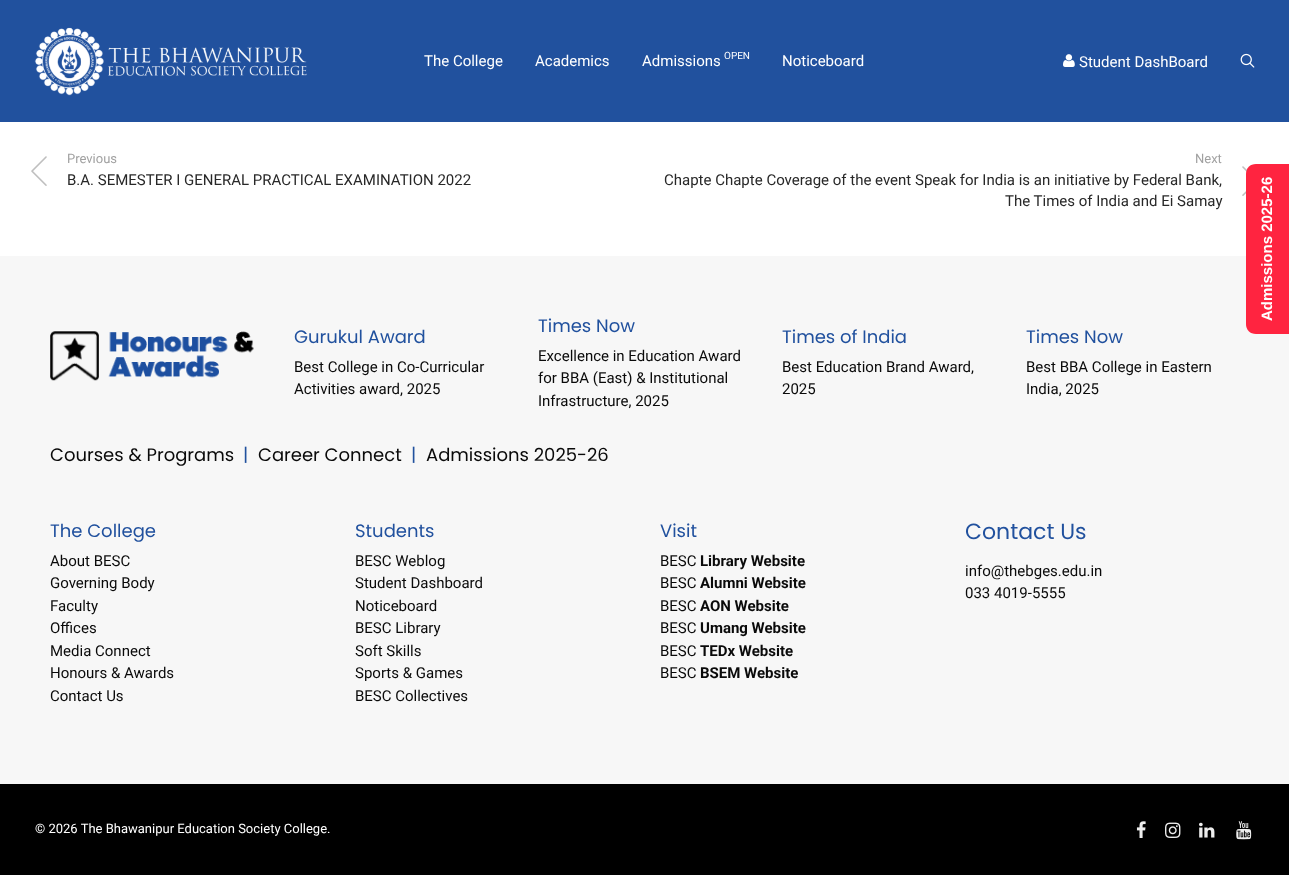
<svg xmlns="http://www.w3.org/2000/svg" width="1289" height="875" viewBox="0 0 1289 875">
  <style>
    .t1 { font: 15px Roboto; fill: #fff; }
    .t2 { font: 10px Roboto; fill: #fff; }
    .t3 { font: 13px Roboto; fill: #a1a1a1; }
    .t4 { font: 15px Roboto; fill: #282828; }
    .t5 { font: bold 15px Liberation Sans; fill: #fff; }
    .t6 { font: 18px Poppins; fill: #21519e; }
    .t7 { font: 15px Roboto; fill: #0a0a0a; }
    .t8 { font: 18px Poppins; fill: #0a0a0a; }
    .t9 { font: bold 15px Roboto; fill: #0a0a0a; }
    .t10 { font: 22px Poppins; fill: #21519e; }
    .t11 { font: 13px Roboto; fill: #fff; }
  </style>
  <rect width="100%" height="100%" fill="#fff"/>
  <rect x="0" y="0" width="1289" height="122" fill="#21519e"/>
  <image x="34" y="27" width="273" height="69" href="images/1.png"/>
  <text x="424" y="66" class="t1">The College</text>
  <text x="535" y="66" class="t1">Academics</text>
  <text x="642" y="66" class="t1">Admissions</text>
  <text x="724" y="59" class="t2">OPEN</text>
  <text x="782" y="66" class="t1">Noticeboard</text>
  <image x="1063" y="54" width="12" height="13" href="images/2.png"/>
  <text x="1079" y="67" class="t1">Student DashBoard</text>
  <image x="1240" y="53" width="15" height="15" href="images/3.png"/>
  <image x="31" y="156" width="16" height="30" href="images/4.png"/>
  <text x="67" y="163" class="t3">Previous</text>
  <text x="67" y="185" class="t4">B.A. SEMESTER I GENERAL PRACTICAL EXAMINATION 2022</text>
  <text x="1195" y="163" class="t3">Next</text>
  <text x="664" y="185" class="t4">Chapte Chapte Coverage of the event Speak for India is an initiative by Federal Bank,</text>
  <image x="1242" y="166" width="5" height="30" href="images/5.png"/>
  <text x="1005" y="206" class="t4">The Times of India and Ei Samay</text>
  <rect x="0" y="256" width="1289" height="528" fill="#f7f7f7"/>
  <path d="M1246 324V174C1246 168 1250 164 1256 164H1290V334H1256C1250 334 1246 330 1246 324Z" fill="#ff2440"/>
  <text x="1272" y="321" transform="rotate(-90 1272 321)" class="t5">Admissions 2025-26</text>
  <image x="50" y="331" width="204" height="50" href="images/6.png"/>
  <text x="294" y="343" class="t6">Gurukul Award</text>
  <text x="294" y="372" class="t7">Best College in Co-Curricular</text>
  <text x="294" y="394" class="t7">Activities award, 2025</text>
  <text x="538" y="332" class="t6">Times Now</text>
  <text x="538" y="361" class="t7">Excellence in Education Award</text>
  <text x="538" y="383" class="t7">for BBA (East) &amp; Institutional</text>
  <text x="538" y="406" class="t7">Infrastructure, 2025</text>
  <text x="782" y="343" class="t6">Times of India</text>
  <text x="782" y="372" class="t7">Best Education Brand Award,</text>
  <text x="782" y="394" class="t7">2025</text>
  <text x="1026" y="343" class="t6">Times Now</text>
  <text x="1026" y="372" class="t7">Best BBA College in Eastern</text>
  <text x="1026" y="394" class="t7">India, 2025</text>
  <text x="50" y="461" class="t8">Courses &amp; Programs</text>
  <text x="243" y="461" class="t6">|</text>
  <text x="258" y="461" class="t8">Career Connect</text>
  <text x="411" y="461" class="t6">|</text>
  <text x="426" y="461" class="t8">Admissions 2025-26</text>
  <text x="50" y="537" class="t6">The College</text>
  <text x="50" y="566" class="t7">About BESC</text>
  <text x="50" y="588" class="t7">Governing Body</text>
  <text x="50" y="611" class="t7">Faculty</text>
  <text x="50" y="633" class="t7">Offices</text>
  <text x="50" y="656" class="t7">Media Connect</text>
  <text x="50" y="678" class="t7">Honours &amp; Awards</text>
  <text x="50" y="701" class="t7">Contact Us</text>
  <text x="355" y="537" class="t6">Students</text>
  <text x="355" y="566" class="t7">BESC Weblog</text>
  <text x="355" y="588" class="t7">Student Dashboard</text>
  <text x="355" y="611" class="t7">Noticeboard</text>
  <text x="355" y="633" class="t7">BESC Library</text>
  <text x="355" y="656" class="t7">Soft Skills</text>
  <text x="355" y="678" class="t7">Sports &amp; Games</text>
  <text x="355" y="701" class="t7">BESC Collectives</text>
  <text x="660" y="537" class="t6">Visit</text>
  <text x="660" y="566" class="t7">BESC</text>
  <text x="700" y="566" class="t9">Library Website</text>
  <text x="660" y="588" class="t7">BESC</text>
  <text x="700" y="588" class="t9">Alumni Website</text>
  <text x="660" y="611" class="t7">BESC</text>
  <text x="700" y="611" class="t9">AON Website</text>
  <text x="660" y="633" class="t7">BESC</text>
  <text x="700" y="633" class="t9">Umang Website</text>
  <text x="660" y="656" class="t7">BESC</text>
  <text x="700" y="656" class="t9">TEDx Website</text>
  <text x="660" y="678" class="t7">BESC</text>
  <text x="700" y="678" class="t9">BSEM Website</text>
  <text x="965" y="539" class="t10">Contact Us</text>
  <text x="965" y="576" class="t7">info@thebges.edu.in</text>
  <text x="965" y="598" class="t7">033 4019-5555</text>
  <rect x="0" y="784" width="1289" height="91" fill="#000"/>
  <text x="35" y="833" class="t11">© 2026 The Bhawanipur Education Society College.</text>
  <image x="1136" y="821" width="10" height="17" href="images/7.png"/>
  <image x="1165" y="822" width="16" height="16" href="images/8.png"/>
  <image x="1199" y="822" width="16" height="16" href="images/9.png"/>
  <image x="1236" y="821" width="16" height="19" href="images/10.png"/>
</svg>
